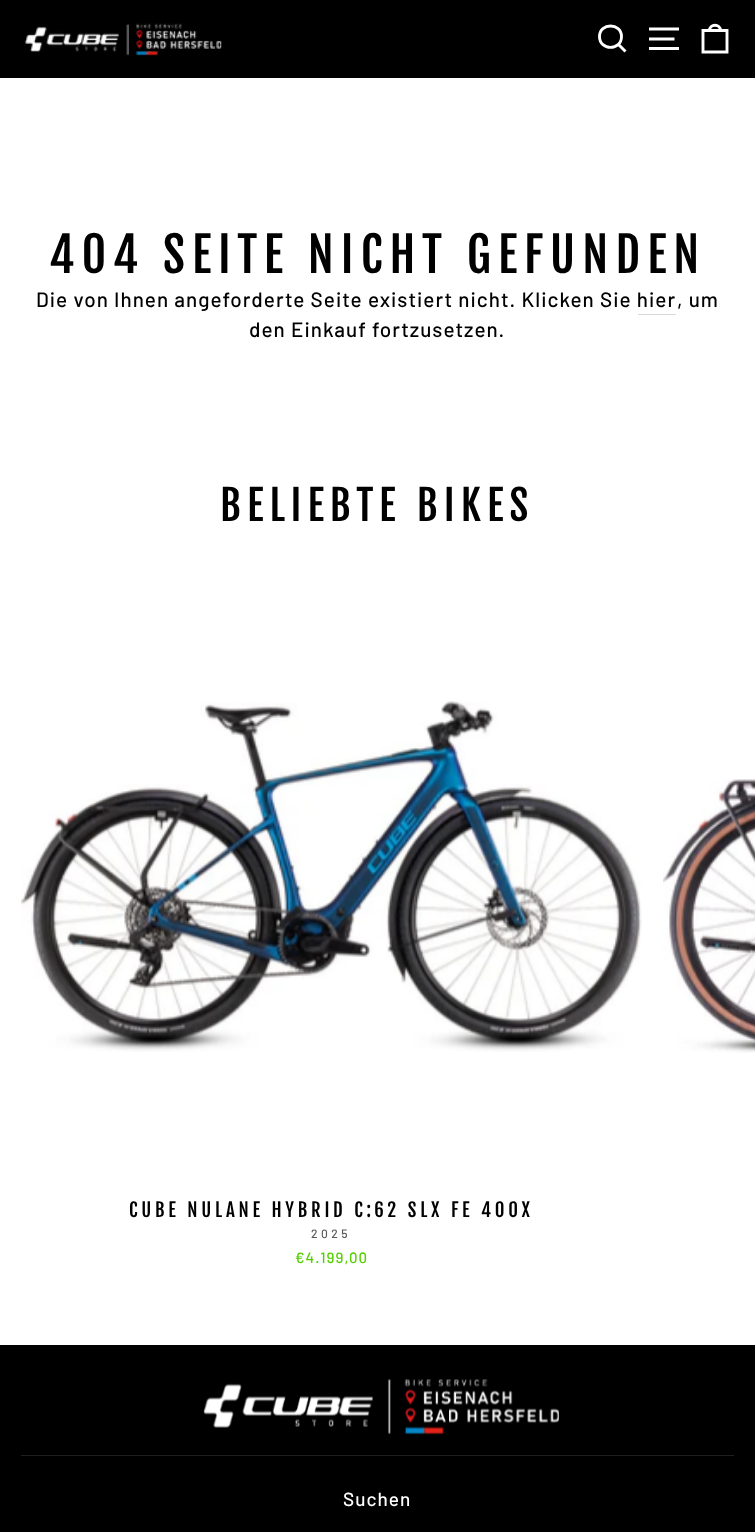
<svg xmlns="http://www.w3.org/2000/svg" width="755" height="1532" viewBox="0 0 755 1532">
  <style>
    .t1 { font: 47.75px Fjalla One; letter-spacing: 7.2px; fill: #000; }
    .t2 { font: 500 20.7px Barlow; letter-spacing: 1.03px; fill: #000; }
    .t3 { font: 41px Fjalla One; letter-spacing: 6.2px; fill: #000; }
    .t4 { font: 18.75px Fjalla One; letter-spacing: 3.75px; fill: #000; }
    .t5 { font: 500 12px Barlow; letter-spacing: 3.5px; fill: #595959; }
    .t6 { font: 500 15px Barlow; letter-spacing: 1.03px; fill: #54d002; }
    .t7 { font: 500 19px Barlow; letter-spacing: 1.03px; fill: #fff; }
  </style>
  <rect width="100%" height="100%" fill="#fff"/>
  <rect x="0" y="0" width="755" height="78" fill="#000"/>
  <image x="24" y="23" width="198" height="33" href="images/1.png"/>
  <path d="M621.5 36.5C621.5 51 599.5 51 599.5 36.5C599.5 22.5 621.5 22.5 621.5 36.5ZM625.5 51.5L618.5 44.5" fill="none" stroke="#fff" stroke-width="2.9"/>
  <path d="M649 29H679M649 39H674.5M649 48.5H679" fill="none" stroke="#fff" stroke-width="2.9"/>
  <path d="M703 30.5H727V52H703ZM709.5 30.5C709.5 23.5 720.5 23.5 720.5 30.5" fill="none" stroke="#fff" stroke-width="2.9"/>
  <text x="49" y="273" class="t1">404 SEITE NICHT GEFUNDEN</text>
  <text x="36" y="307" class="t2">Die von Ihnen angeforderte Seite existiert nicht. Klicken Sie hier</text>
  <text x="677" y="307" class="t2">, um</text>
  <rect x="638" y="314" width="38" height="1" fill="#d9d9d9"/>
  <text x="249" y="337" class="t2">den Einkauf fortzusetzen.</text>
  <text x="220" y="521" class="t3">BELIEBTE BIKES</text>
  <image x="663" y="779" width="92" height="274" href="images/2.png"/>
  <image x="21" y="701" width="621" height="351" href="images/3.png"/>
  <text x="129" y="1217" class="t4">CUBE NULANE HYBRID C:62 SLX FE 400X</text>
  <text x="311" y="1238" class="t5">2025</text>
  <text x="295" y="1263" class="t6">€4.199,00</text>
  <rect x="0" y="1345" width="755" height="187" fill="#000"/>
  <image x="203" y="1379" width="356" height="56" href="images/4.png"/>
  <rect x="21" y="1455" width="713" height="1" fill="#1f1f1f"/>
  <text x="343" y="1506" class="t7">Suchen</text>
</svg>
